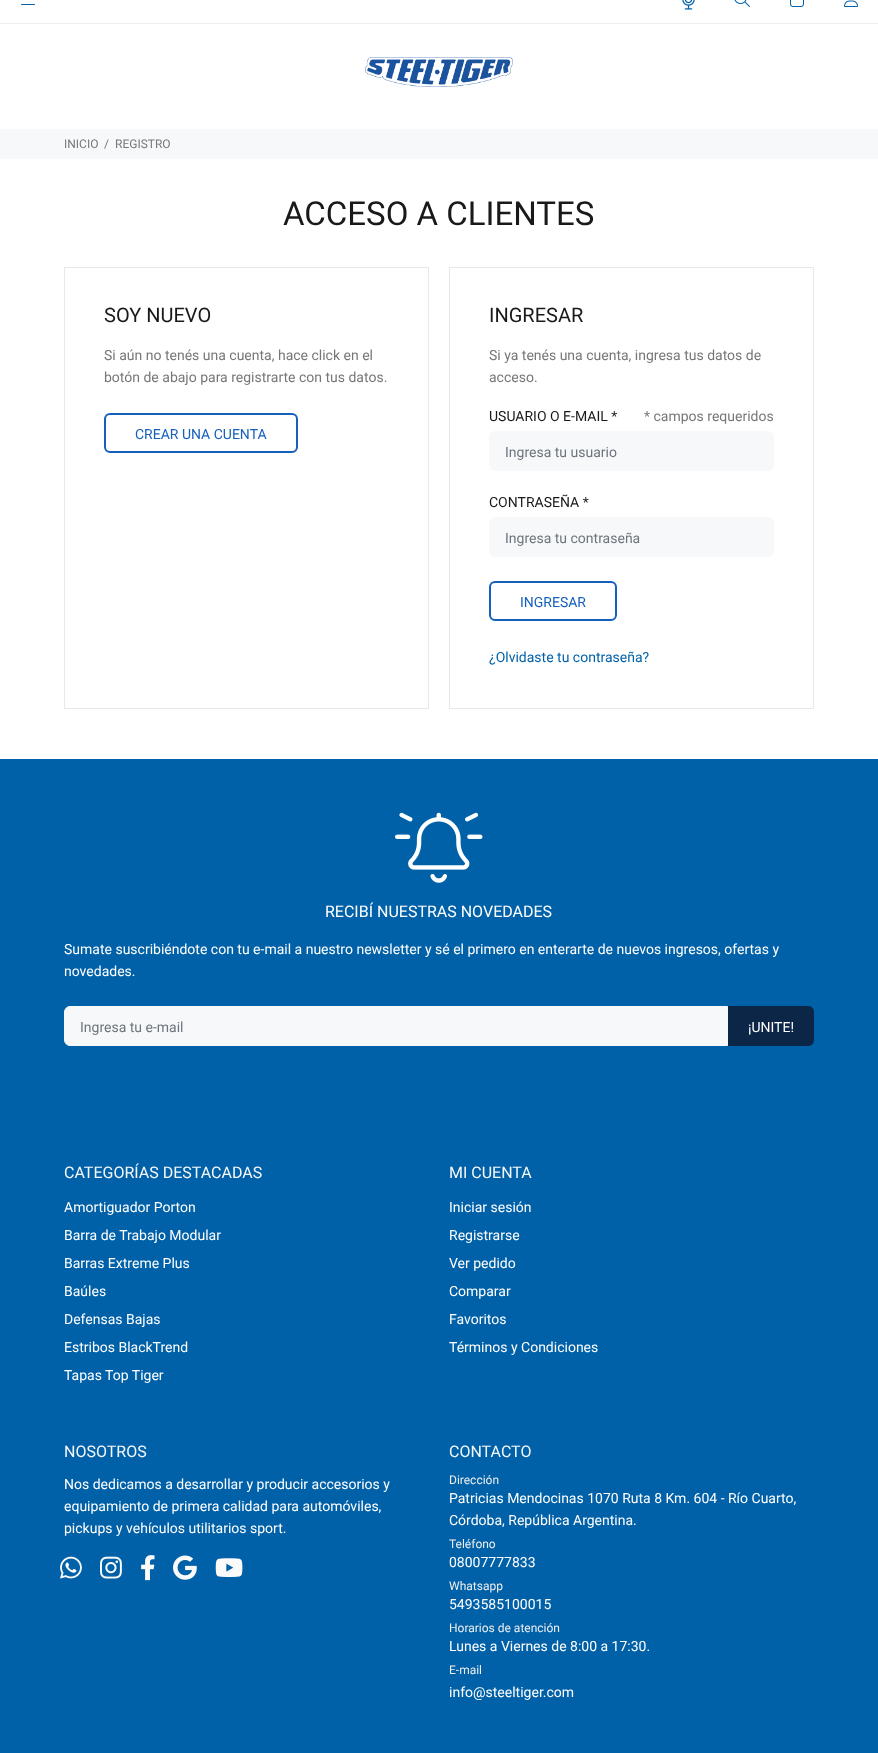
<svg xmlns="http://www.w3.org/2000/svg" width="878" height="1753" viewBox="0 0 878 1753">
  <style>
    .t1 { font: 12px Roboto; fill: #777; }
    .t2 { font: 33px Roboto; fill: #191919; }
    .t3 { font: 20px Roboto; fill: #191919; }
    .t4 { font: 14px Roboto; fill: #777; }
    .t5 { font: 14px Roboto; fill: #1560bd; }
    .t6 { font: 14px Roboto; fill: #191919; }
    .t7 { font: 14px Roboto; fill: #6c757d; }
    .t8 { font: 14px Roboto; fill: #0061a8; }
    .t9 { font: 16px Roboto; fill: #fff; }
    .t10 { font: 14px Roboto; fill: #fff; }
    .t11 { font: 16px Roboto; fill: #f7f8fa; }
    .t12 { font: 12px Roboto; fill: #eee; }
  </style>
  <rect width="100%" height="100%" fill="#fff"/>
  <image x="21" y="4" width="14" height="1" href="images/1.png"/>
  <image x="682" y="0" width="13" height="10" href="images/2.png"/>
  <image x="734" y="0" width="16" height="7" href="images/3.png"/>
  <image x="790" y="0" width="14" height="7" href="images/4.png"/>
  <image x="844" y="0" width="14" height="7" href="images/5.png"/>
  <rect x="0" y="23" width="878" height="1" fill="#eee"/>
  <image x="365" y="57" width="148" height="30" href="images/6.png"/>
  <rect x="0" y="129" width="878" height="30" fill="#f7f8fa"/>
  <text x="64" y="148" class="t1">INICIO</text>
  <text x="104" y="148" class="t1">/</text>
  <text x="115" y="148" class="t1">REGISTRO</text>
  <text x="283" y="225" class="t2">ACCESO A CLIENTES</text>
  <rect x="64.5" y="267.5" width="364" height="441" fill="none" stroke="#e9e7e7"/>
  <text x="104" y="322" class="t3">SOY NUEVO</text>
  <text x="104" y="360" class="t4">Si aún no tenés una cuenta, hace click en el</text>
  <text x="104" y="382" class="t4">botón de abajo para registrarte con tus datos.</text>
  <rect x="105" y="414" width="192" height="38" rx="5" fill="none" stroke="#1560bd" stroke-width="2"/>
  <text x="135" y="439" class="t5">CREAR UNA CUENTA</text>
  <rect x="449.5" y="267.5" width="364" height="441" fill="none" stroke="#e9e7e7"/>
  <text x="489" y="322" class="t3">INGRESAR</text>
  <text x="489" y="360" class="t4">Si ya tenés una cuenta, ingresa tus datos de</text>
  <text x="489" y="382" class="t4">acceso.</text>
  <text x="489" y="421" class="t6">USUARIO O E-MAIL *</text>
  <text x="644" y="421" class="t4">* campos requeridos</text>
  <rect x="489" y="431" width="285" height="40" rx="6" fill="#f7f8fa"/>
  <text x="505" y="457" class="t7">Ingresa tu usuario</text>
  <text x="489" y="507" class="t6">CONTRASEÑA *</text>
  <rect x="489" y="517" width="285" height="40" rx="6" fill="#f7f8fa"/>
  <text x="505" y="543" class="t7">Ingresa tu contraseña</text>
  <rect x="490" y="582" width="126" height="38" rx="5" fill="none" stroke="#1560bd" stroke-width="2"/>
  <text x="520" y="607" class="t5">INGRESAR</text>
  <text x="489" y="662" class="t8">¿Olvidaste tu contraseña?</text>
  <rect x="0" y="759" width="878" height="994" fill="#0061a8"/>
  <image x="395" y="812" width="88" height="71" href="images/7.png"/>
  <text x="325" y="917" class="t9">RECIBÍ NUESTRAS NOVEDADES</text>
  <text x="64" y="954" class="t10">Sumate suscribiéndote con tu e-mail a nuestro newsletter y sé el primero en enterarte de nuevos ingresos, ofertas y</text>
  <text x="64" y="976" class="t10">novedades.</text>
  <path d="M70 1006.5H727.5V1045.5H70C67 1045.5 64.5 1043 64.5 1040V1012C64.5 1009 67 1006.5 70 1006.5Z" fill="#f7f8fa" stroke="#f7f8fa"/>
  <text x="80" y="1032" class="t7">Ingresa tu e-mail</text>
  <path d="M728 1006H808C811.5 1006 814 1008.5 814 1012V1040C814 1043.5 811.5 1046 808 1046H728Z" fill="#0c2647"/>
  <text x="748" y="1032" class="t10">¡UNITE!</text>
  <text x="64" y="1178" class="t11">CATEGORÍAS DESTACADAS</text>
  <text x="64" y="1212" class="t10">Amortiguador Porton</text>
  <text x="64" y="1240" class="t10">Barra de Trabajo Modular</text>
  <text x="64" y="1268" class="t10">Barras Extreme Plus</text>
  <text x="64" y="1296" class="t10">Baúles</text>
  <text x="64" y="1324" class="t10">Defensas Bajas</text>
  <text x="64" y="1352" class="t10">Estribos BlackTrend</text>
  <text x="64" y="1380" class="t10">Tapas Top Tiger</text>
  <text x="449" y="1178" class="t11">MI CUENTA</text>
  <text x="449" y="1212" class="t10">Iniciar sesión</text>
  <text x="449" y="1240" class="t10">Registrarse</text>
  <text x="449" y="1268" class="t10">Ver pedido</text>
  <text x="449" y="1296" class="t10">Comparar</text>
  <text x="449" y="1324" class="t10">Favoritos</text>
  <text x="449" y="1352" class="t10">Términos y Condiciones</text>
  <text x="64" y="1457" class="t11">NOSOTROS</text>
  <text x="64" y="1489" class="t10">Nos dedicamos a desarrollar y producir accesorios y</text>
  <text x="64" y="1511" class="t10">equipamiento de primera calidad para automóviles,</text>
  <text x="64" y="1533" class="t10">pickups y vehículos utilitarios sport.</text>
  <image x="60" y="1556" width="22" height="23" href="images/8.png"/>
  <image x="100" y="1556" width="22" height="23" href="images/9.png"/>
  <image x="141" y="1555" width="14" height="26" href="images/10.png"/>
  <image x="173" y="1555" width="24" height="25" href="images/11.png"/>
  <image x="215" y="1558" width="28" height="19" href="images/12.png"/>
  <text x="449" y="1457" class="t11">CONTACTO</text>
  <text x="449" y="1484" class="t12">Dirección</text>
  <text x="449" y="1503" class="t10">Patricias Mendocinas 1070 Ruta 8 Km. 604 - Río Cuarto,</text>
  <text x="449" y="1525" class="t10">Córdoba, República Argentina.</text>
  <text x="449" y="1548" class="t12">Teléfono</text>
  <text x="449" y="1567" class="t10">08007777833</text>
  <text x="449" y="1590" class="t12">Whatsapp</text>
  <text x="449" y="1609" class="t10">5493585100015</text>
  <text x="449" y="1632" class="t12">Horarios de atención</text>
  <text x="449" y="1651" class="t10">Lunes a Viernes de 8:00 a 17:30.</text>
  <text x="449" y="1674" class="t12">E-mail</text>
  <text x="449" y="1697" class="t10">info@steeltiger.com</text>
</svg>
